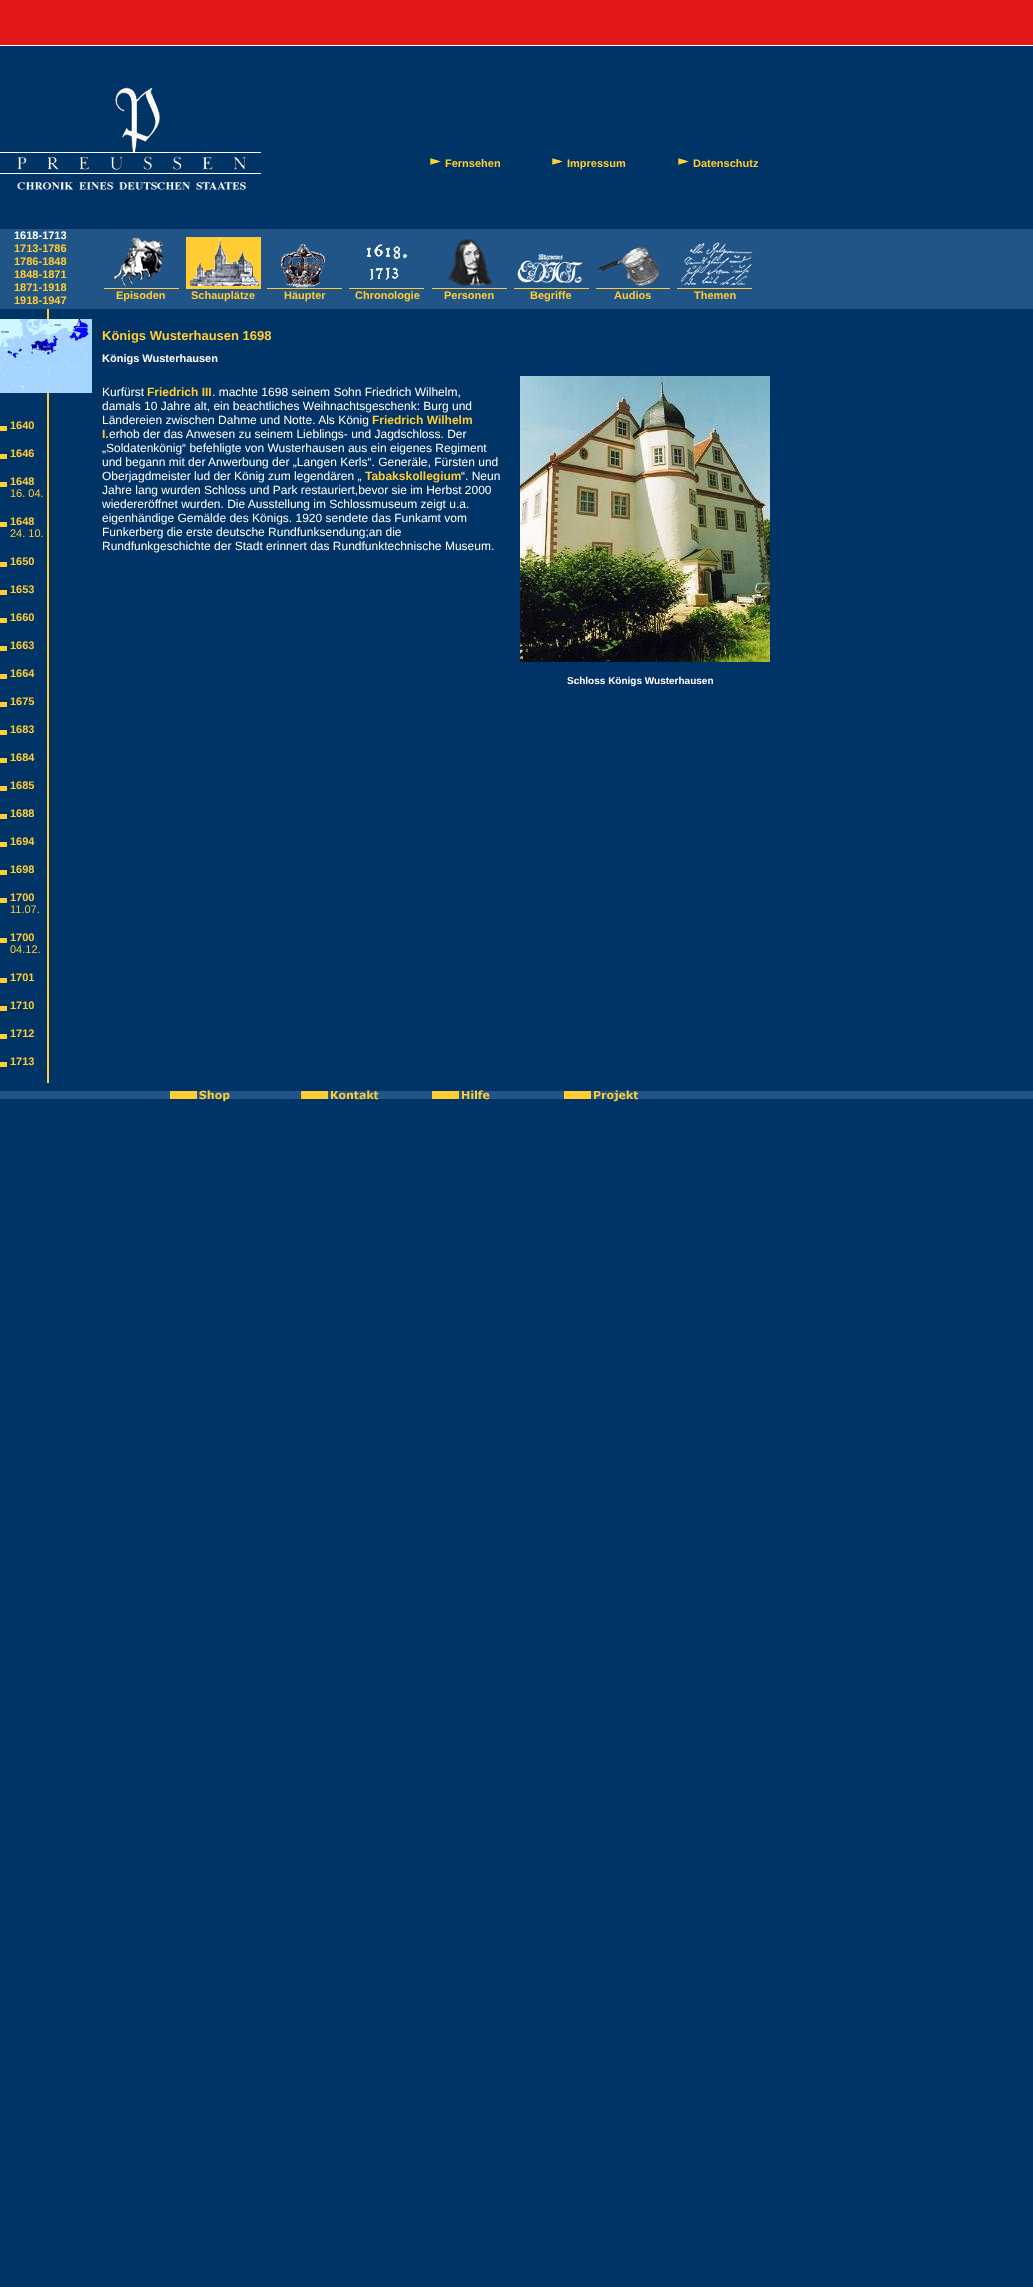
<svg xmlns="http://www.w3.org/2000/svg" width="1033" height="2287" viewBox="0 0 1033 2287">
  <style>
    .t1 { font: bold 11px Liberation Sans; fill: #fc3; }
    .t2 { font: bold 11px Liberation Sans; fill: #fff; }
    .t3 { font: 11px Liberation Sans; fill: #fc3; }
    .t4 { font: bold 13px Liberation Sans; fill: #fc3; }
    .t5 { font: 12px Liberation Sans; fill: #fff; }
    .t6 { font: bold 12px Liberation Sans; fill: #fc3; }
    .t7 { font: bold 10px Liberation Sans; fill: #fff; }
  </style>
  <rect width="100%" height="100%" fill="#036"/>
  <rect x="0" y="45" width="1033" height="1" fill="#fff"/>
  <rect x="0" y="0" width="1033" height="45" fill="#e31818"/>
  <image x="0" y="87" width="261" height="66" href="images/1.png"/>
  <image x="0" y="156" width="261" height="18" href="images/2.png"/>
  <image x="17" y="182" width="229" height="8" href="images/3.png"/>
  <image x="430" y="158" width="11" height="7" href="images/4.png"/>
  <text x="445" y="167" class="t1">Fernsehen</text>
  <image x="552" y="158" width="11" height="7" href="images/4.png"/>
  <text x="567" y="167" class="t1">Impressum</text>
  <image x="678" y="158" width="11" height="7" href="images/4.png"/>
  <text x="693" y="167" class="t1">Datenschutz</text>
  <rect x="0" y="229" width="1033" height="80" fill="#215588"/>
  <text x="14" y="239" class="t2">1618-1713</text>
  <text x="14" y="252" class="t1">1713-1786</text>
  <text x="14" y="265" class="t1">1786-1848</text>
  <text x="14" y="278" class="t1">1848-1871</text>
  <text x="14" y="291" class="t1">1871-1918</text>
  <text x="14" y="304" class="t1">1918-1947</text>
  <image x="104" y="237" width="75" height="52" href="images/5.png"/>
  <text x="116" y="299" class="t1">Episoden</text>
  <image x="186" y="237" width="75" height="52" href="images/6.png"/>
  <text x="191" y="299" class="t1">Schauplätze</text>
  <image x="267" y="244" width="75" height="45" href="images/7.png"/>
  <text x="284" y="299" class="t1">Häupter</text>
  <image x="349" y="244" width="75" height="45" href="images/8.png"/>
  <text x="355" y="299" class="t1">Chronologie</text>
  <image x="432" y="239" width="75" height="50" href="images/9.png"/>
  <text x="444" y="299" class="t1">Personen</text>
  <image x="514" y="254" width="75" height="35" href="images/10.png"/>
  <text x="530" y="299" class="t1">Begriffe</text>
  <image x="596" y="247" width="75" height="42" href="images/11.png"/>
  <text x="614" y="299" class="t1">Audios</text>
  <image x="677" y="242" width="76" height="47" href="images/12.png"/>
  <text x="694" y="299" class="t1">Themen</text>
  <rect x="47" y="309" width="2" height="774" fill="#fc3"/>
  <image x="0" y="319" width="92" height="74" href="images/13.png"/>
  <text x="10" y="429" class="t1">1640</text>
  <rect x="0" y="426" width="7" height="5" fill="#fc3"/>
  <text x="10" y="457" class="t1">1646</text>
  <rect x="0" y="454" width="7" height="5" fill="#fc3"/>
  <text x="10" y="485" class="t1">1648</text>
  <rect x="0" y="482" width="7" height="5" fill="#fc3"/>
  <text x="10" y="497" class="t3">16. 04.</text>
  <text x="10" y="525" class="t1">1648</text>
  <rect x="0" y="522" width="7" height="5" fill="#fc3"/>
  <text x="10" y="537" class="t3">24. 10.</text>
  <text x="10" y="565" class="t1">1650</text>
  <rect x="0" y="562" width="7" height="5" fill="#fc3"/>
  <text x="10" y="593" class="t1">1653</text>
  <rect x="0" y="590" width="7" height="5" fill="#fc3"/>
  <text x="10" y="621" class="t1">1660</text>
  <rect x="0" y="618" width="7" height="5" fill="#fc3"/>
  <text x="10" y="649" class="t1">1663</text>
  <rect x="0" y="646" width="7" height="5" fill="#fc3"/>
  <text x="10" y="677" class="t1">1664</text>
  <rect x="0" y="674" width="7" height="5" fill="#fc3"/>
  <text x="10" y="705" class="t1">1675</text>
  <rect x="0" y="702" width="7" height="5" fill="#fc3"/>
  <text x="10" y="733" class="t1">1683</text>
  <rect x="0" y="730" width="7" height="5" fill="#fc3"/>
  <text x="10" y="761" class="t1">1684</text>
  <rect x="0" y="758" width="7" height="5" fill="#fc3"/>
  <text x="10" y="789" class="t1">1685</text>
  <rect x="0" y="786" width="7" height="5" fill="#fc3"/>
  <text x="10" y="817" class="t1">1688</text>
  <rect x="0" y="814" width="7" height="5" fill="#fc3"/>
  <text x="10" y="845" class="t1">1694</text>
  <rect x="0" y="842" width="7" height="5" fill="#fc3"/>
  <text x="10" y="873" class="t1">1698</text>
  <rect x="0" y="870" width="7" height="5" fill="#fc3"/>
  <text x="10" y="901" class="t1">1700</text>
  <rect x="0" y="898" width="7" height="5" fill="#fc3"/>
  <text x="10" y="913" class="t3">11.07.</text>
  <text x="10" y="941" class="t1">1700</text>
  <rect x="0" y="938" width="7" height="5" fill="#fc3"/>
  <text x="10" y="953" class="t3">04.12.</text>
  <text x="10" y="981" class="t1">1701</text>
  <rect x="0" y="978" width="7" height="5" fill="#fc3"/>
  <text x="10" y="1009" class="t1">1710</text>
  <rect x="0" y="1006" width="7" height="5" fill="#fc3"/>
  <text x="10" y="1037" class="t1">1712</text>
  <rect x="0" y="1034" width="7" height="5" fill="#fc3"/>
  <text x="10" y="1065" class="t1">1713</text>
  <rect x="0" y="1062" width="7" height="5" fill="#fc3"/>
  <text x="102" y="340" class="t4">Königs Wusterhausen 1698</text>
  <text x="102" y="362" class="t2">Königs Wusterhausen</text>
  <text x="102" y="396" class="t5">Kurfürst</text>
  <text x="147" y="396" class="t6">Friedrich III</text>
  <text x="212" y="396" class="t5">. machte 1698 seinem Sohn Friedrich Wilhelm,</text>
  <text x="102" y="410" class="t5">damals 10 Jahre alt, ein beachtliches Weihnachtsgeschenk: Burg und</text>
  <text x="102" y="424" class="t5">Ländereien zwischen Dahme und Notte. Als König</text>
  <text x="372" y="424" class="t6">Friedrich Wilhelm</text>
  <text x="102" y="438" class="t6">I.</text>
  <text x="109" y="438" class="t5">erhob der das Anwesen zu seinem Lieblings- und Jagdschloss. Der</text>
  <text x="102" y="452" class="t5">„Soldatenkönig“ befehligte von Wusterhausen aus ein eigenes Regiment</text>
  <text x="102" y="466" class="t5">und begann mit der Anwerbung der „Langen Kerls“. Generäle, Fürsten und</text>
  <text x="102" y="480" class="t5">Oberjagdmeister lud der König zum legendären „</text>
  <text x="365" y="480" class="t6">Tabakskollegium</text>
  <text x="461" y="480" class="t5">“. Neun</text>
  <text x="102" y="494" class="t5">Jahre lang wurden Schloss und Park restauriert,bevor sie im Herbst 2000</text>
  <text x="102" y="508" class="t5">wiedereröffnet wurden. Die Ausstellung im Schlossmuseum zeigt u.a.</text>
  <text x="102" y="522" class="t5">eigenhändige Gemälde des Königs. 1920 sendete das Funkamt vom</text>
  <text x="102" y="536" class="t5">Funkerberg die erste deutsche Rundfunksendung;an die</text>
  <text x="102" y="550" class="t5">Rundfunkgeschichte der Stadt erinnert das Rundfunktechnische Museum.</text>
  <image x="520" y="376" width="250" height="286" href="images/14.png"/>
  <text x="567" y="684" class="t7">Schloss Königs Wusterhausen</text>
  <rect x="0" y="1091" width="1033" height="8" fill="#215588"/>
  <image x="170" y="1090" width="60" height="12" href="images/15.png"/>
  <image x="301" y="1090" width="78" height="10" href="images/16.png"/>
  <image x="432" y="1090" width="58" height="10" href="images/17.png"/>
  <image x="564" y="1090" width="74" height="12" href="images/18.png"/>
</svg>
